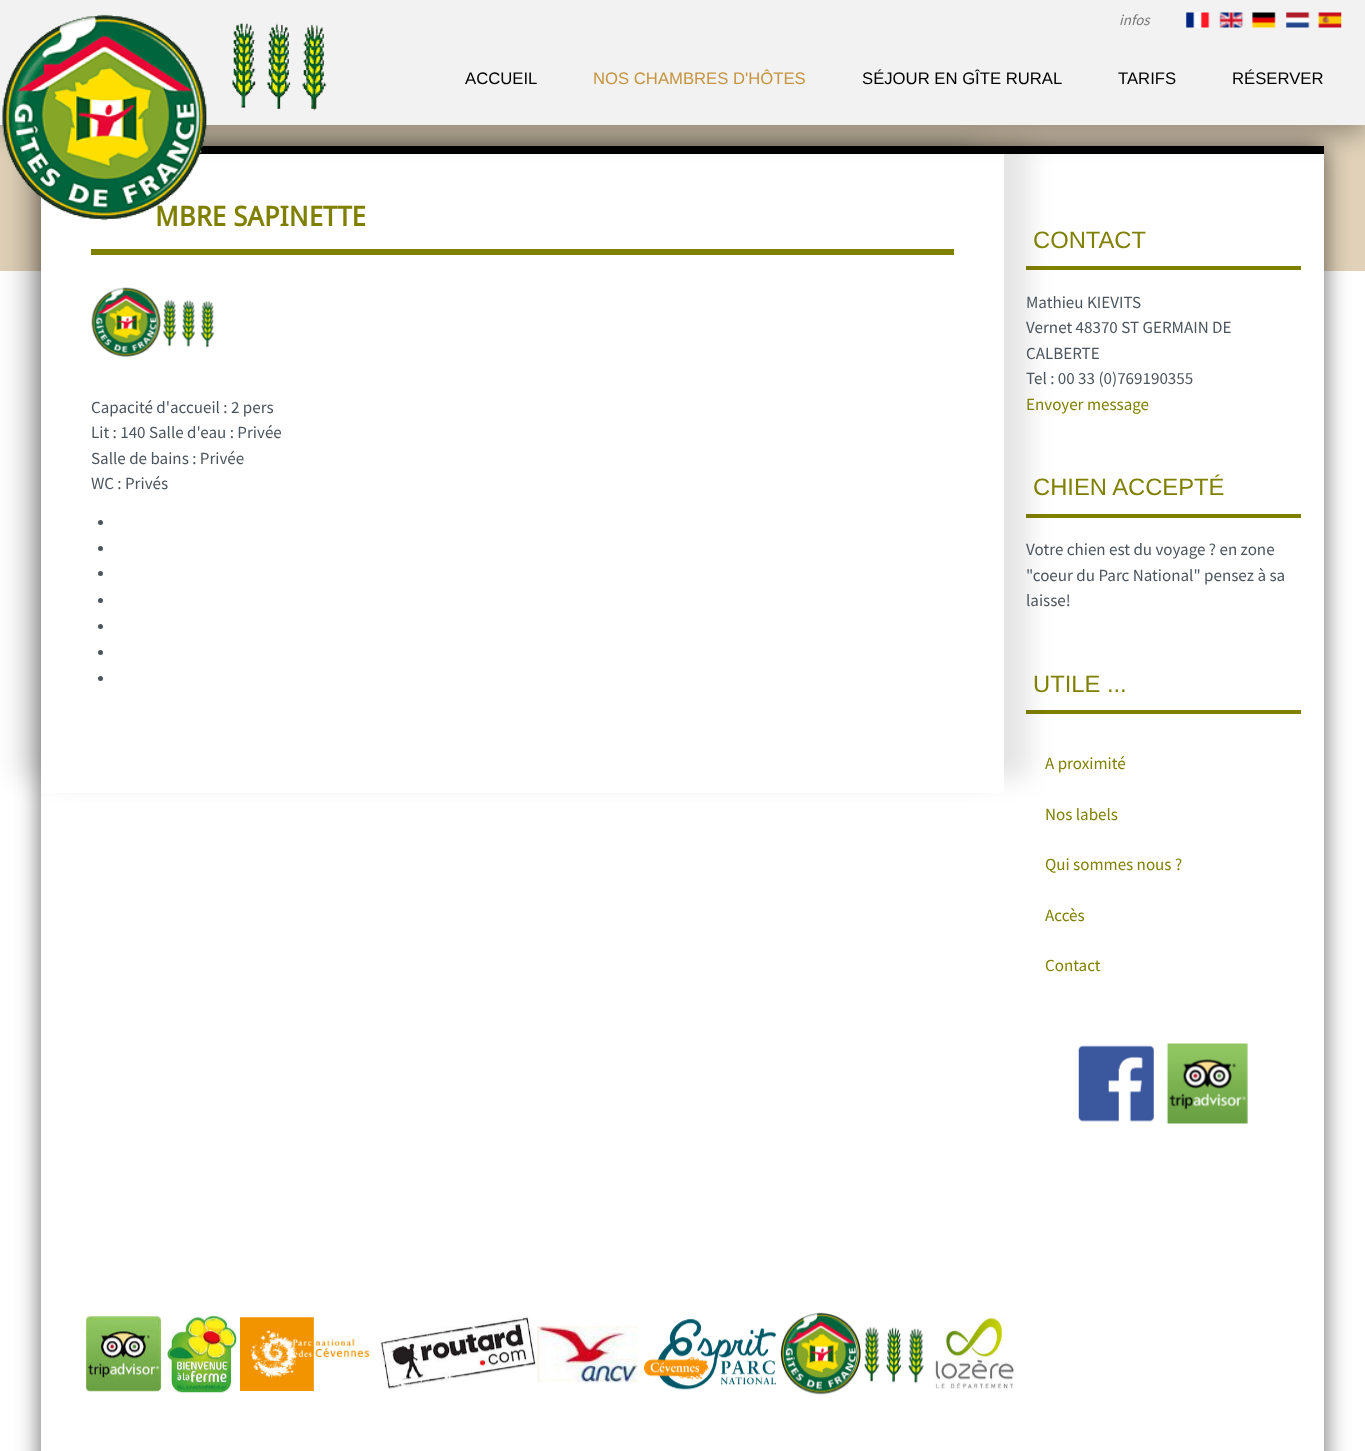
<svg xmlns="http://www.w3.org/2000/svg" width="1365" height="1451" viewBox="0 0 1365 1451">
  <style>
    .t1 { font: bold 27.25px Droid Sans; fill: #808000; }
    .t2 { font: italic 15px Source Sans Pro; fill: #777; }
    .t3 { font: 16.7px Liberation Sans; fill: #000; }
    .t4 { font: 16.7px Liberation Sans; fill: #c69340; }
    .t5 { font: 17px Source Sans Pro; fill: #4c555d; }
    .t6 { font: 23.75px Liberation Sans; fill: #808000; }
    .t7 { font: 17px Source Sans Pro; fill: #808000; }
  </style>
  <defs>
    <clipPath id="clip1"><path d="M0 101H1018V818H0ZM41 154H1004V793H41Z" clip-rule="evenodd"/></clipPath>
    <clipPath id="clip2"><path d="M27 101H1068V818H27ZM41 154H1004V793H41Z" clip-rule="evenodd"/></clipPath>
  </defs>
  <rect width="100%" height="100%" fill="#fff"/>
  <rect x="0" y="125" width="1365" height="146" fill="#e0d1b8"/>
  <rect x="41" y="146" width="1283" height="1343" fill="#00000099" filter="blur(12.5px)"/>
  <rect x="41" y="154" width="1283" height="1297" fill="#fff"/>
  <rect x="199" y="146" width="1125" height="8" fill="#000"/>
  <rect x="0" y="10" width="1365" height="125" fill="#0000004d" filter="blur(12.5px)"/>
  <g clip-path="url(#clip1)">
    <rect x="16" y="140" width="963" height="639" fill="#0000001a" filter="blur(12.5px)"/>
  </g>
  <rect x="1026" y="266" width="275" height="4" fill="#808000"/>
  <rect x="1026" y="514" width="275" height="4" fill="#808000"/>
  <rect x="1026" y="710" width="275" height="4" fill="#808000"/>
  <g clip-path="url(#clip2)">
    <rect x="66" y="140" width="963" height="639" fill="#0000001a" filter="blur(12.5px)"/>
  </g>
  <rect x="0" y="0" width="1365" height="125" fill="#f2f2f2"/>
  <text x="155" y="226" class="t1">MBRE SAPINETTE</text>
  <image x="2" y="14" width="325" height="207" href="images/1.png"/>
  <text x="1119" y="25" class="t2">infos</text>
  <image x="1186" y="12" width="24" height="16" href="images/2.png"/>
  <image x="1219" y="12" width="25" height="16" href="images/3.png"/>
  <image x="1252" y="12" width="24" height="16" href="images/4.png"/>
  <image x="1286" y="12" width="24" height="16" href="images/5.png"/>
  <image x="1318" y="12" width="24" height="16" href="images/6.png"/>
  <text x="465" y="84" class="t3">ACCUEIL</text>
  <text x="593" y="84" class="t4">NOS CHAMBRES D'HÔTES</text>
  <text x="862" y="84" class="t3">SÉJOUR EN GÎTE RURAL</text>
  <text x="1118" y="84" class="t3">TARIFS</text>
  <text x="1232" y="84" class="t3">RÉSERVER</text>
  <rect x="91" y="249" width="863" height="6" fill="#808000"/>
  <image x="91" y="287" width="124" height="70" href="images/7.png"/>
  <text x="91" y="413" class="t5">Capacité d'accueil : 2 pers</text>
  <text x="91" y="438" class="t5">Lit : 140 Salle d'eau : Privée</text>
  <text x="91" y="464" class="t5">Salle de bains : Privée</text>
  <text x="91" y="489" class="t5">WC : Privés</text>
  <circle cx="100.5" cy="522.5" r="2.5" fill="#4c555d"/>
  <circle cx="100.5" cy="548.5" r="2.5" fill="#4c555d"/>
  <circle cx="100.5" cy="573.5" r="2.5" fill="#4c555d"/>
  <circle cx="100.5" cy="600.5" r="2.5" fill="#4c555d"/>
  <circle cx="100.5" cy="626.5" r="2.5" fill="#4c555d"/>
  <circle cx="100.5" cy="652.5" r="2.5" fill="#4c555d"/>
  <circle cx="100.5" cy="678.5" r="2.5" fill="#4c555d"/>
  <text x="1033" y="248" class="t6">CONTACT</text>
  <text x="1026" y="308" class="t5">Mathieu KIEVITS</text>
  <text x="1026" y="333" class="t5">Vernet 48370 ST GERMAIN DE</text>
  <text x="1026" y="359" class="t5">CALBERTE</text>
  <text x="1026" y="384" class="t5">Tel : 00 33 (0)769190355</text>
  <text x="1026" y="410" class="t7">Envoyer message</text>
  <text x="1033" y="495" class="t6">CHIEN ACCEPTÉ</text>
  <text x="1026" y="555" class="t5">Votre chien est du voyage ? en zone</text>
  <text x="1026" y="581" class="t5">"coeur du Parc National" pensez à sa</text>
  <text x="1026" y="606" class="t5">laisse!</text>
  <text x="1033" y="692" class="t6">UTILE ...</text>
  <text x="1045" y="769" class="t7">A proximité</text>
  <text x="1045" y="820" class="t7">Nos labels</text>
  <text x="1045" y="870" class="t7">Qui sommes nous ?</text>
  <text x="1045" y="921" class="t7">Accès</text>
  <text x="1045" y="971" class="t7">Contact</text>
  <image x="1078" y="1045" width="76" height="77" href="images/8.png"/>
  <image x="1166" y="1043" width="82" height="81" href="images/9.png"/>
  <image x="86" y="1315" width="76" height="77" href="images/10.png"/>
  <image x="167" y="1315" width="70" height="78" href="images/11.png"/>
  <image x="240" y="1317" width="130" height="74" href="images/12.png"/>
  <image x="380" y="1316" width="157" height="74" href="images/13.png"/>
  <image x="537" y="1326" width="101" height="57" href="images/14.png"/>
  <image x="644" y="1318" width="133" height="72" href="images/15.png"/>
  <image x="780" y="1312" width="144" height="83" href="images/16.png"/>
  <image x="934" y="1317" width="81" height="72" href="images/17.png"/>
</svg>
